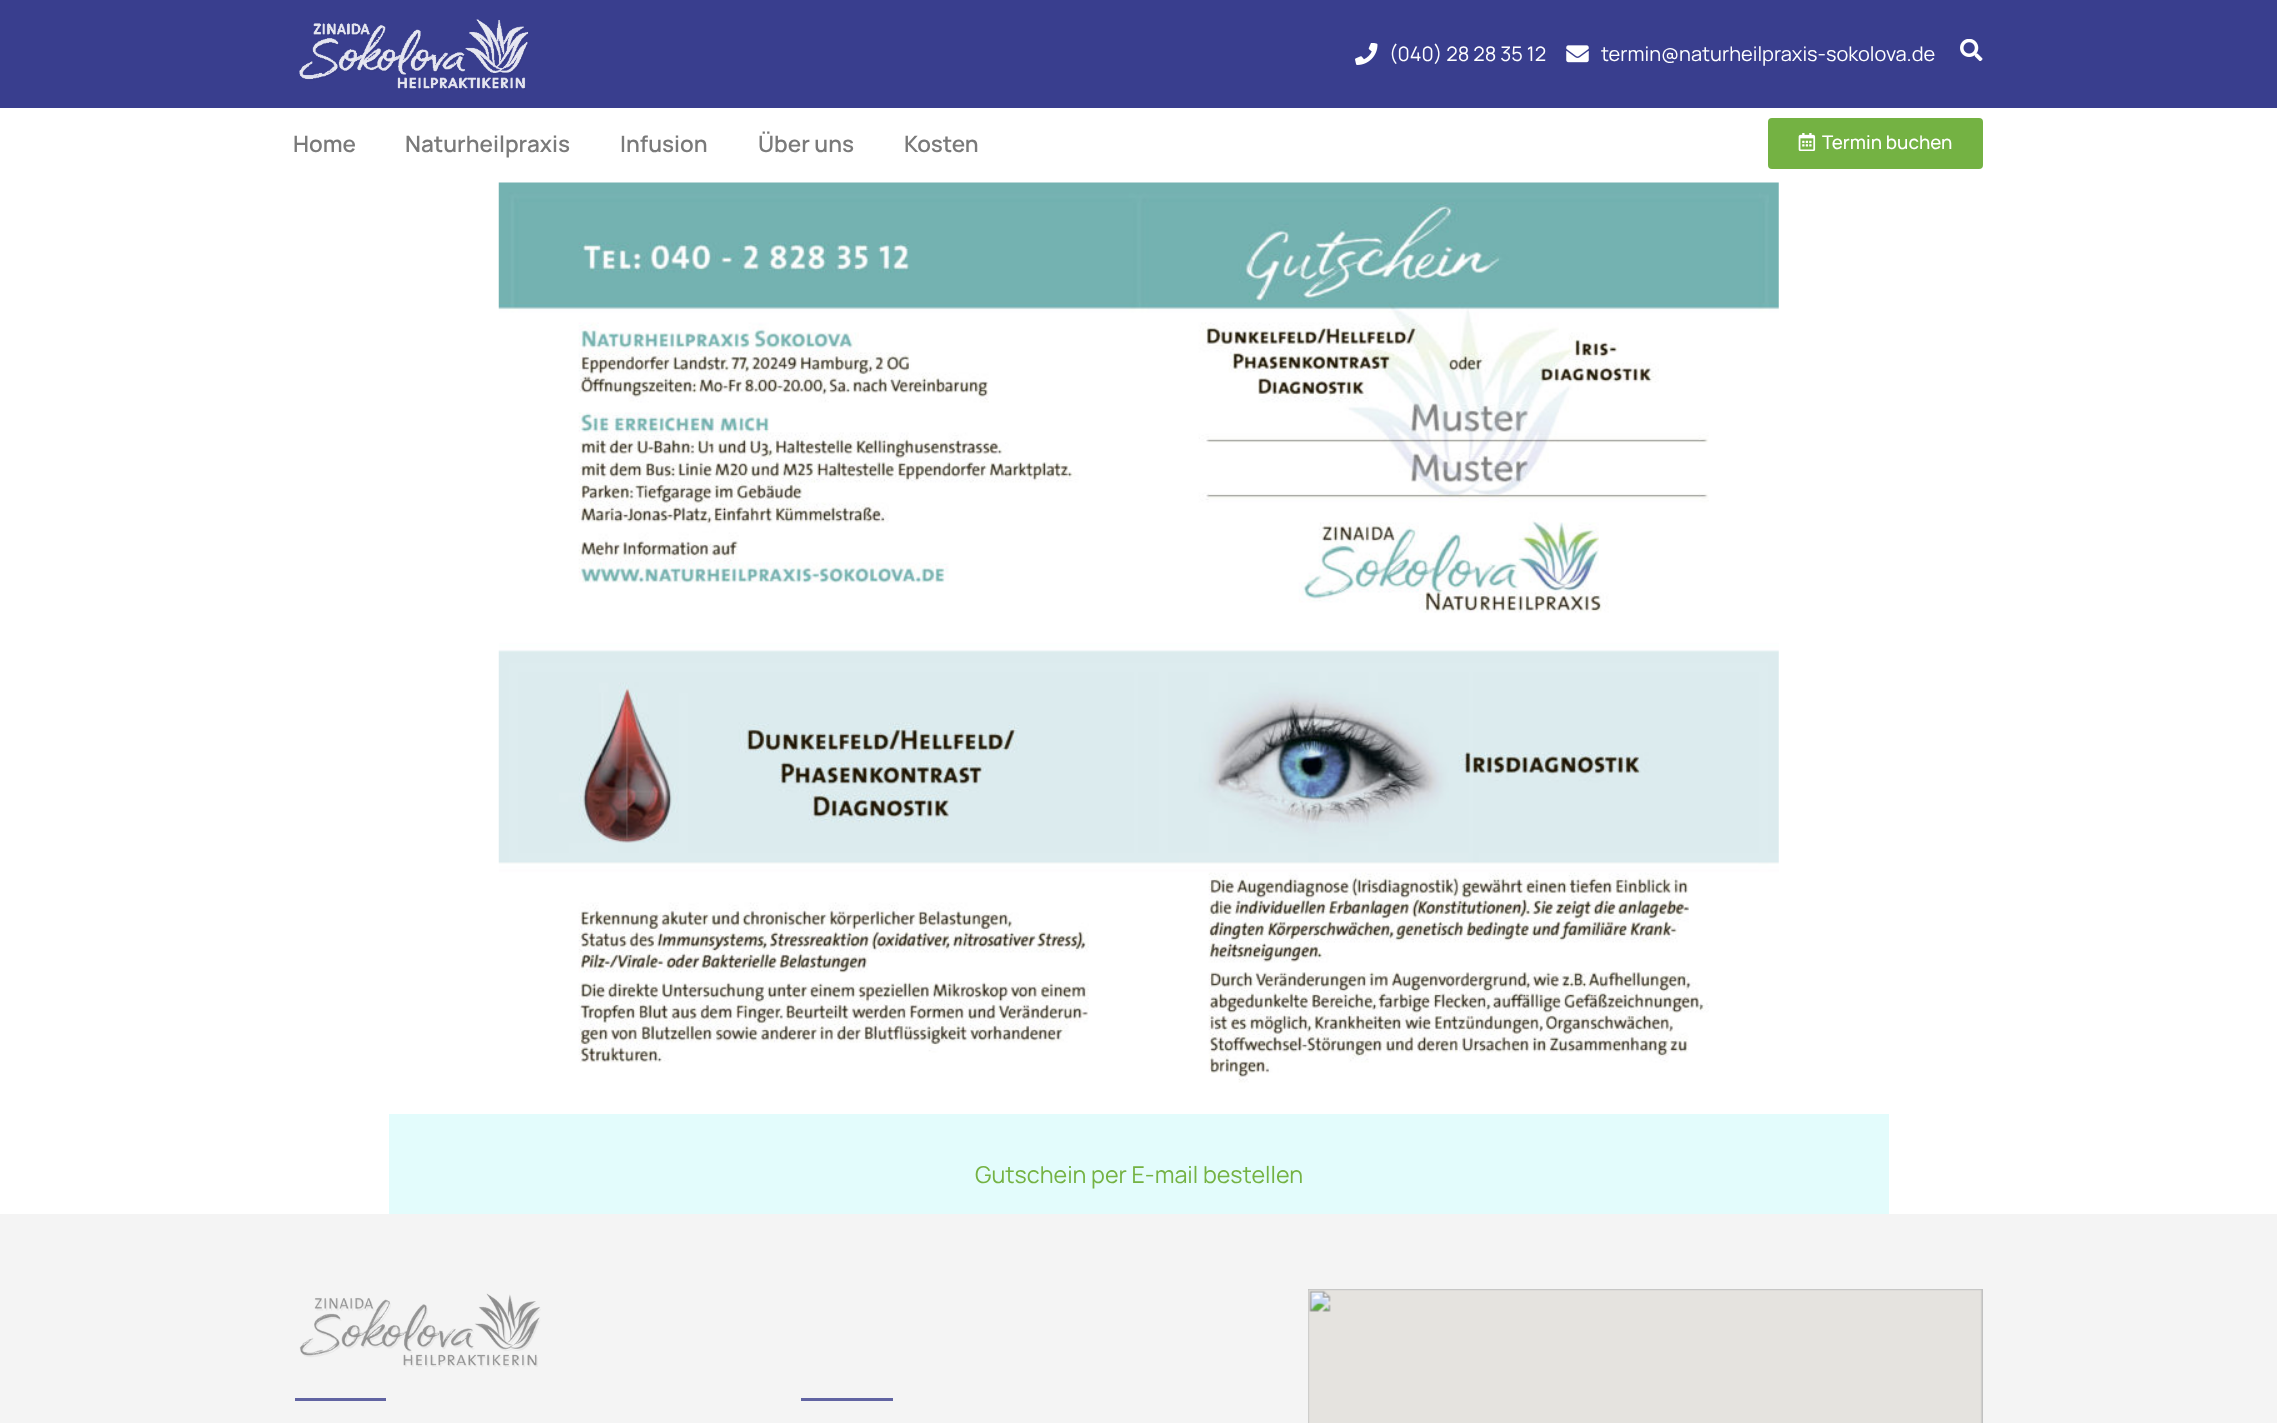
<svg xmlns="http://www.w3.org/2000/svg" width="2277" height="1423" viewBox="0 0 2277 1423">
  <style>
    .t1 { font: 20px Manrope; fill: #fff; }
    .t2 { font: 600 22.5px Manrope; fill: #7a7a7a; }
    .t3 { font: 500 18.75px Manrope; fill: #fff; }
    .t4 { font: 23.3px Manrope; fill: #74b243; }
  </style>
  <rect width="100%" height="100%" fill="#fff"/>
  <rect x="0" y="0" width="2277" height="108" fill="#393e8e"/>
  <image x="299" y="19" width="230" height="71" href="images/1.png"/>
  <image x="1355" y="43" width="23" height="22" href="images/2.png"/>
  <text x="1389" y="61" class="t1">(040) 28 28 35 12</text>
  <image x="1566" y="45" width="23" height="18" href="images/3.png"/>
  <text x="1601" y="61" class="t1">termin@naturheilpraxis-sokolova.de</text>
  <image x="1960" y="39" width="23" height="22" href="images/4.png"/>
  <text x="293" y="152" class="t2">Home</text>
  <text x="405" y="152" class="t2">Naturheilpraxis</text>
  <text x="620" y="152" class="t2">Infusion</text>
  <text x="758" y="152" class="t2">Über uns</text>
  <text x="904" y="152" class="t2">Kosten</text>
  <rect x="1768" y="118" width="215" height="51" rx="4" fill="#74b243"/>
  <image x="1798" y="133" width="18" height="18" href="images/5.png"/>
  <text x="1822" y="149" class="t3">Termin buchen</text>
  <image x="498" y="182" width="1281" height="901" href="images/6.png"/>
  <rect x="389" y="1114" width="1500" height="100" fill="#e3fcfc"/>
  <text x="975" y="1183" class="t4">Gutschein per E-mail bestellen</text>
  <rect x="0" y="1214" width="2277" height="209" fill="#f4f4f4"/>
  <image x="299" y="1293" width="242" height="74" href="images/7.png"/>
  <rect x="295" y="1398" width="91" height="3" fill="#6164a2"/>
  <rect x="801" y="1398" width="92" height="3" fill="#6164a2"/>
  <image x="1308" y="1289" width="675" height="134" href="images/8.png"/>
</svg>
